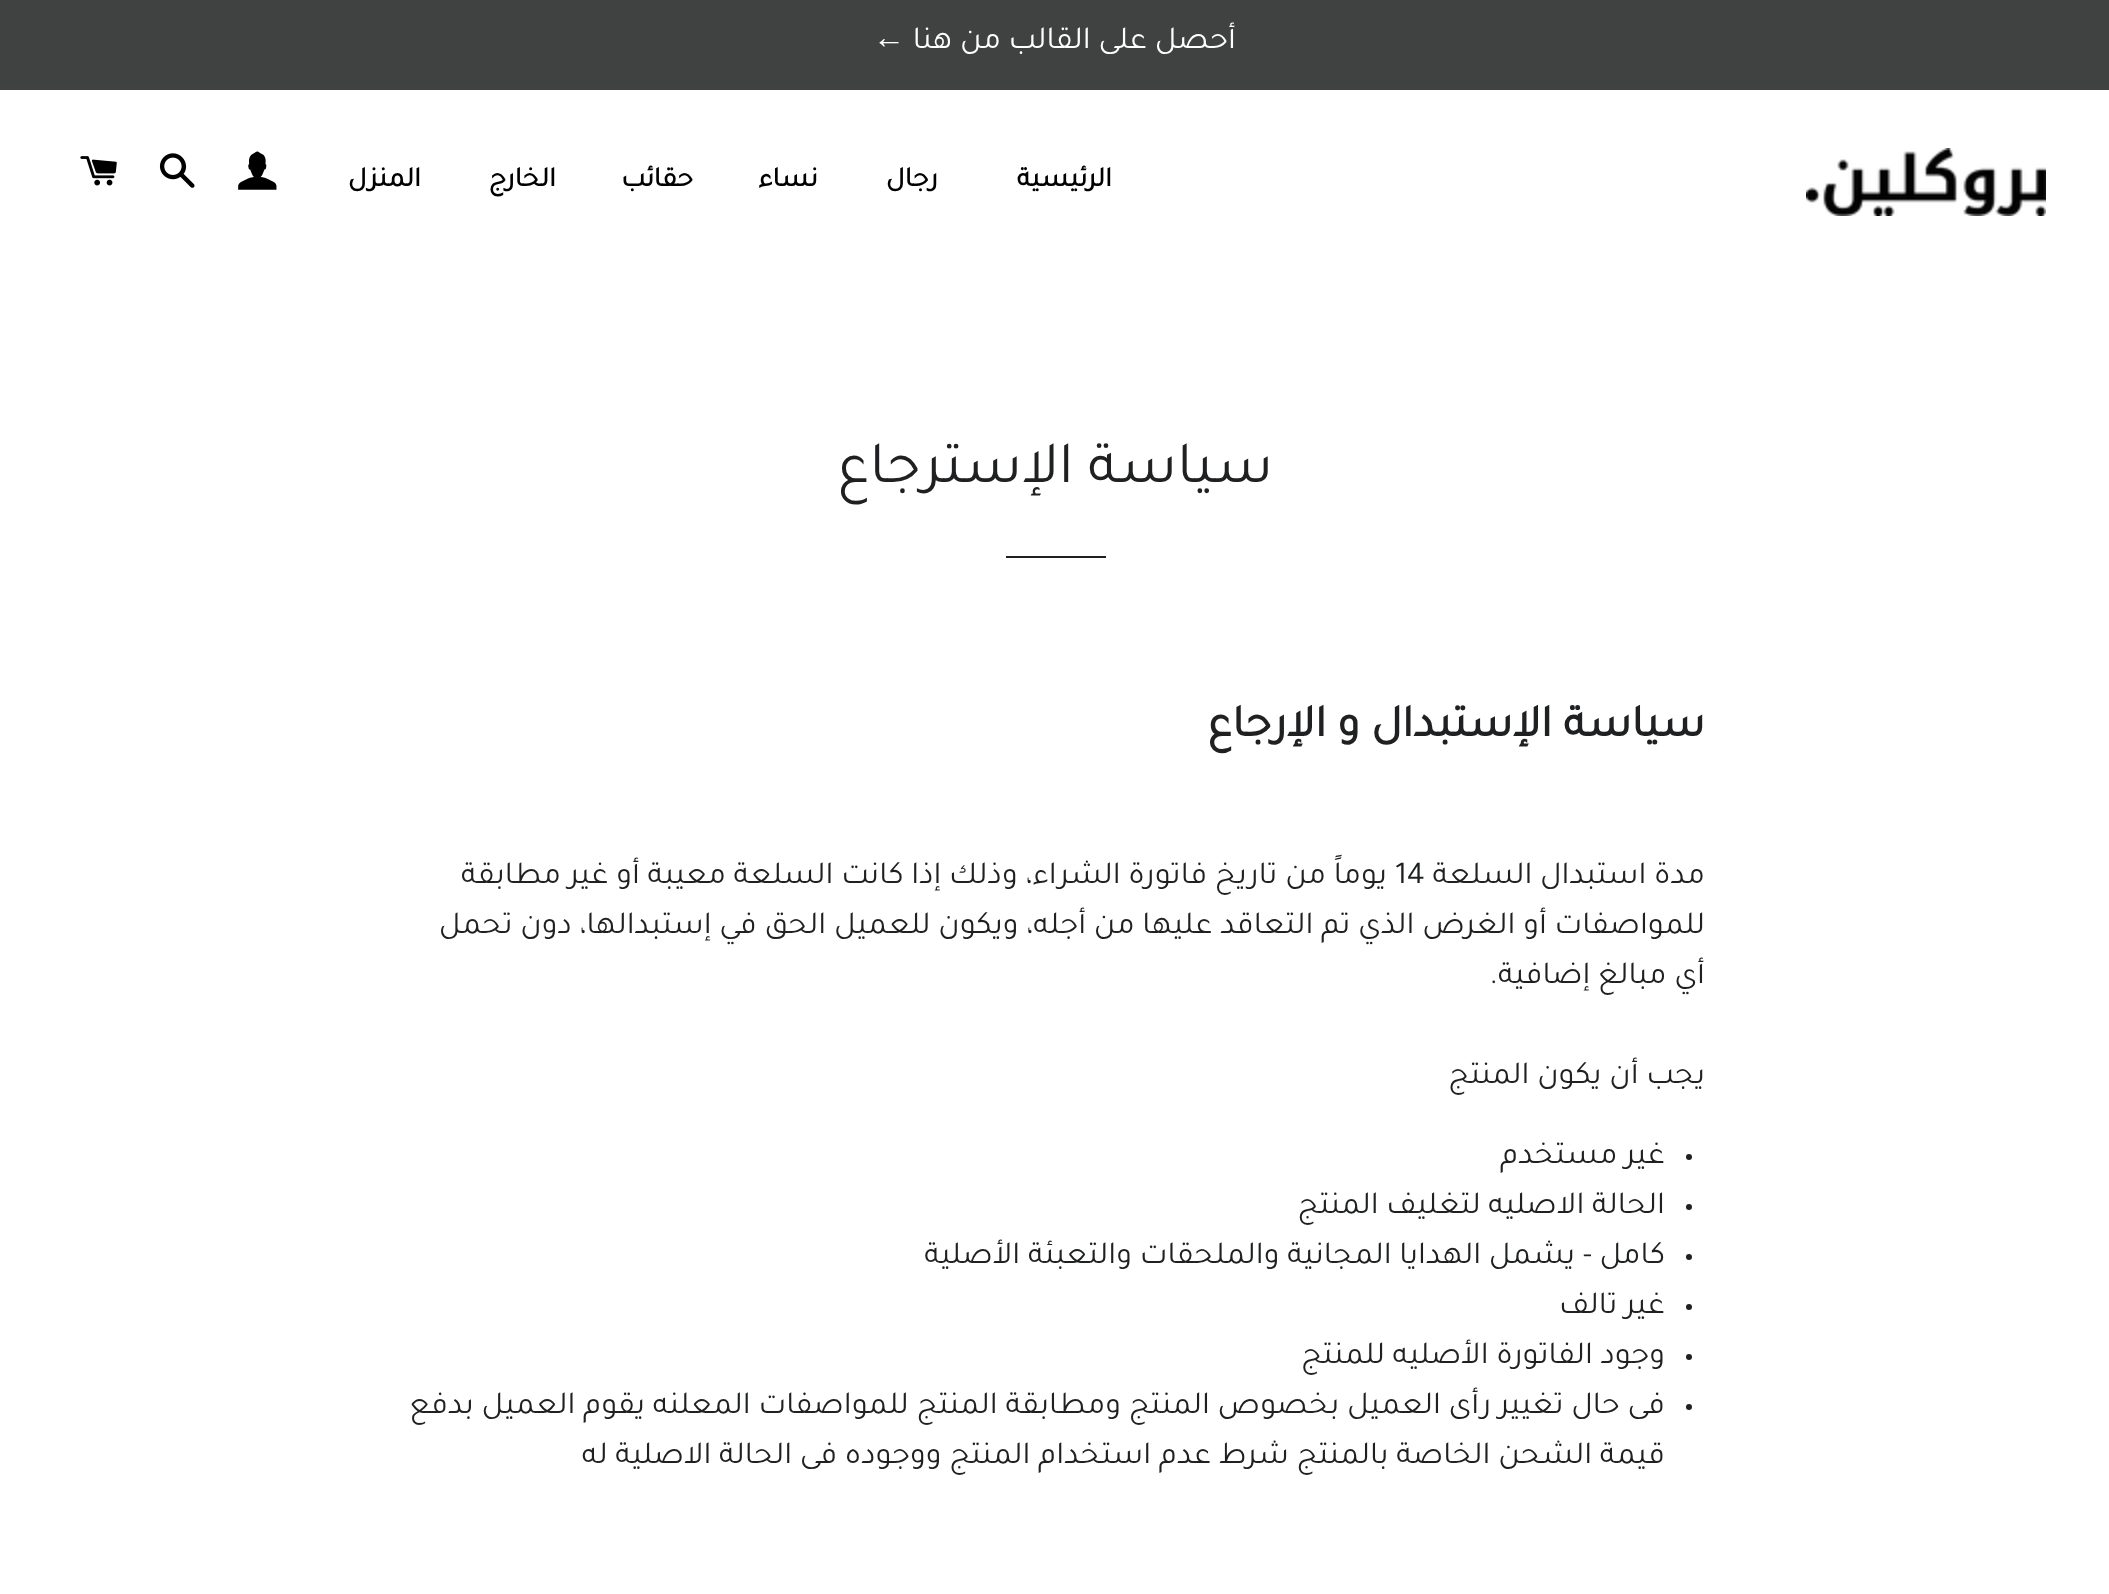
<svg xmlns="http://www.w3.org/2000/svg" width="2109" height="1594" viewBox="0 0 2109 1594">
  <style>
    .t1 { font: 32px Tajawal; direction: rtl; fill: #fff; }
    .t2 { font: 32px Liberation Serif; direction: rtl; fill: #fff; }
    .t3 { font: bold 28px Tajawal; letter-spacing: 2.75px; direction: rtl; fill: #000; }
    .t4 { font: 60px Tajawal; direction: rtl; fill: #1f2021; }
    .t5 { font: bold 46px Tajawal; direction: rtl; fill: #1f2021; }
    .t6 { font: 32px Tajawal; direction: rtl; fill: #1f2021; }
    .t7 { font: 32px Tajawal; fill: #1f2021; }
  </style>
  <rect width="100%" height="100%" fill="#fff"/>
  <rect x="0" y="0" width="2109" height="90" fill="#404242"/>
  <text x="1236" y="48" class="t1">أحصل على القالب من هنا</text>
  <text x="905" y="48" class="t2">←</text>
  <image x="1806" y="148" width="240" height="68" href="images/1.png"/>
  <text x="1112" y="186" class="t3">الرئيسية</text>
  <text x="938" y="186" class="t3">رجال</text>
  <text x="818" y="186" class="t3">نساء</text>
  <text x="693" y="186" class="t3">حقائب</text>
  <text x="556" y="186" class="t3">الخارج</text>
  <text x="421" y="186" class="t3">المنزل</text>
  <image x="238" y="151" width="39" height="39" href="images/2.png"/>
  <image x="159" y="153" width="36" height="35" href="images/3.png"/>
  <image x="80" y="156" width="37" height="30" href="images/4.png"/>
  <text x="1273" y="482" class="t4">سياسة الإسترجاع</text>
  <rect x="1006" y="556" width="100" height="2" fill="#1f2021"/>
  <text x="1705" y="736" class="t5">سياسة الإستبدال و الإرجاع</text>
  <text x="1705" y="883" class="t6">مدة استبدال السلعة</text>
  <text x="1395" y="883" class="t7">14</text>
  <text x="1387" y="883" class="t6">يوماً من تاريخ فاتورة الشراء، وذلك إذا كانت السلعة معيبة أو غير مطابقة</text>
  <text x="1705" y="933" class="t6">للمواصفات أو الغرض الذي تم التعاقد عليها من أجله، ويكون للعميل الحق في إستبدالها، دون تحمل</text>
  <text x="1705" y="983" class="t6">أي مبالغ إضافية.</text>
  <text x="1705" y="1083" class="t6">يجب أن يكون المنتج</text>
  <circle cx="1689" cy="1157" r="3" fill="#1f2021"/>
  <text x="1665" y="1163" class="t6">غير مستخدم</text>
  <circle cx="1689" cy="1207" r="3" fill="#1f2021"/>
  <text x="1665" y="1213" class="t6">الحالة الاصليه لتغليف المنتج</text>
  <circle cx="1689" cy="1257" r="3" fill="#1f2021"/>
  <text x="1665" y="1263" class="t6">كامل - يشمل الهدايا المجانية والملحقات والتعبئة الأصلية</text>
  <circle cx="1689" cy="1307" r="3" fill="#1f2021"/>
  <text x="1665" y="1313" class="t6">غير تالف</text>
  <circle cx="1689" cy="1357" r="3" fill="#1f2021"/>
  <text x="1665" y="1363" class="t6">وجود الفاتورة الأصليه للمنتج</text>
  <circle cx="1689" cy="1407" r="3" fill="#1f2021"/>
  <text x="1665" y="1413" class="t6">فى حال تغيير رأى العميل بخصوص المنتج ومطابقة المنتج للمواصفات المعلنه يقوم العميل بدفع</text>
  <text x="1665" y="1463" class="t6">قيمة الشحن الخاصة بالمنتج شرط عدم استخدام المنتج ووجوده فى الحالة الاصلية له</text>
</svg>
